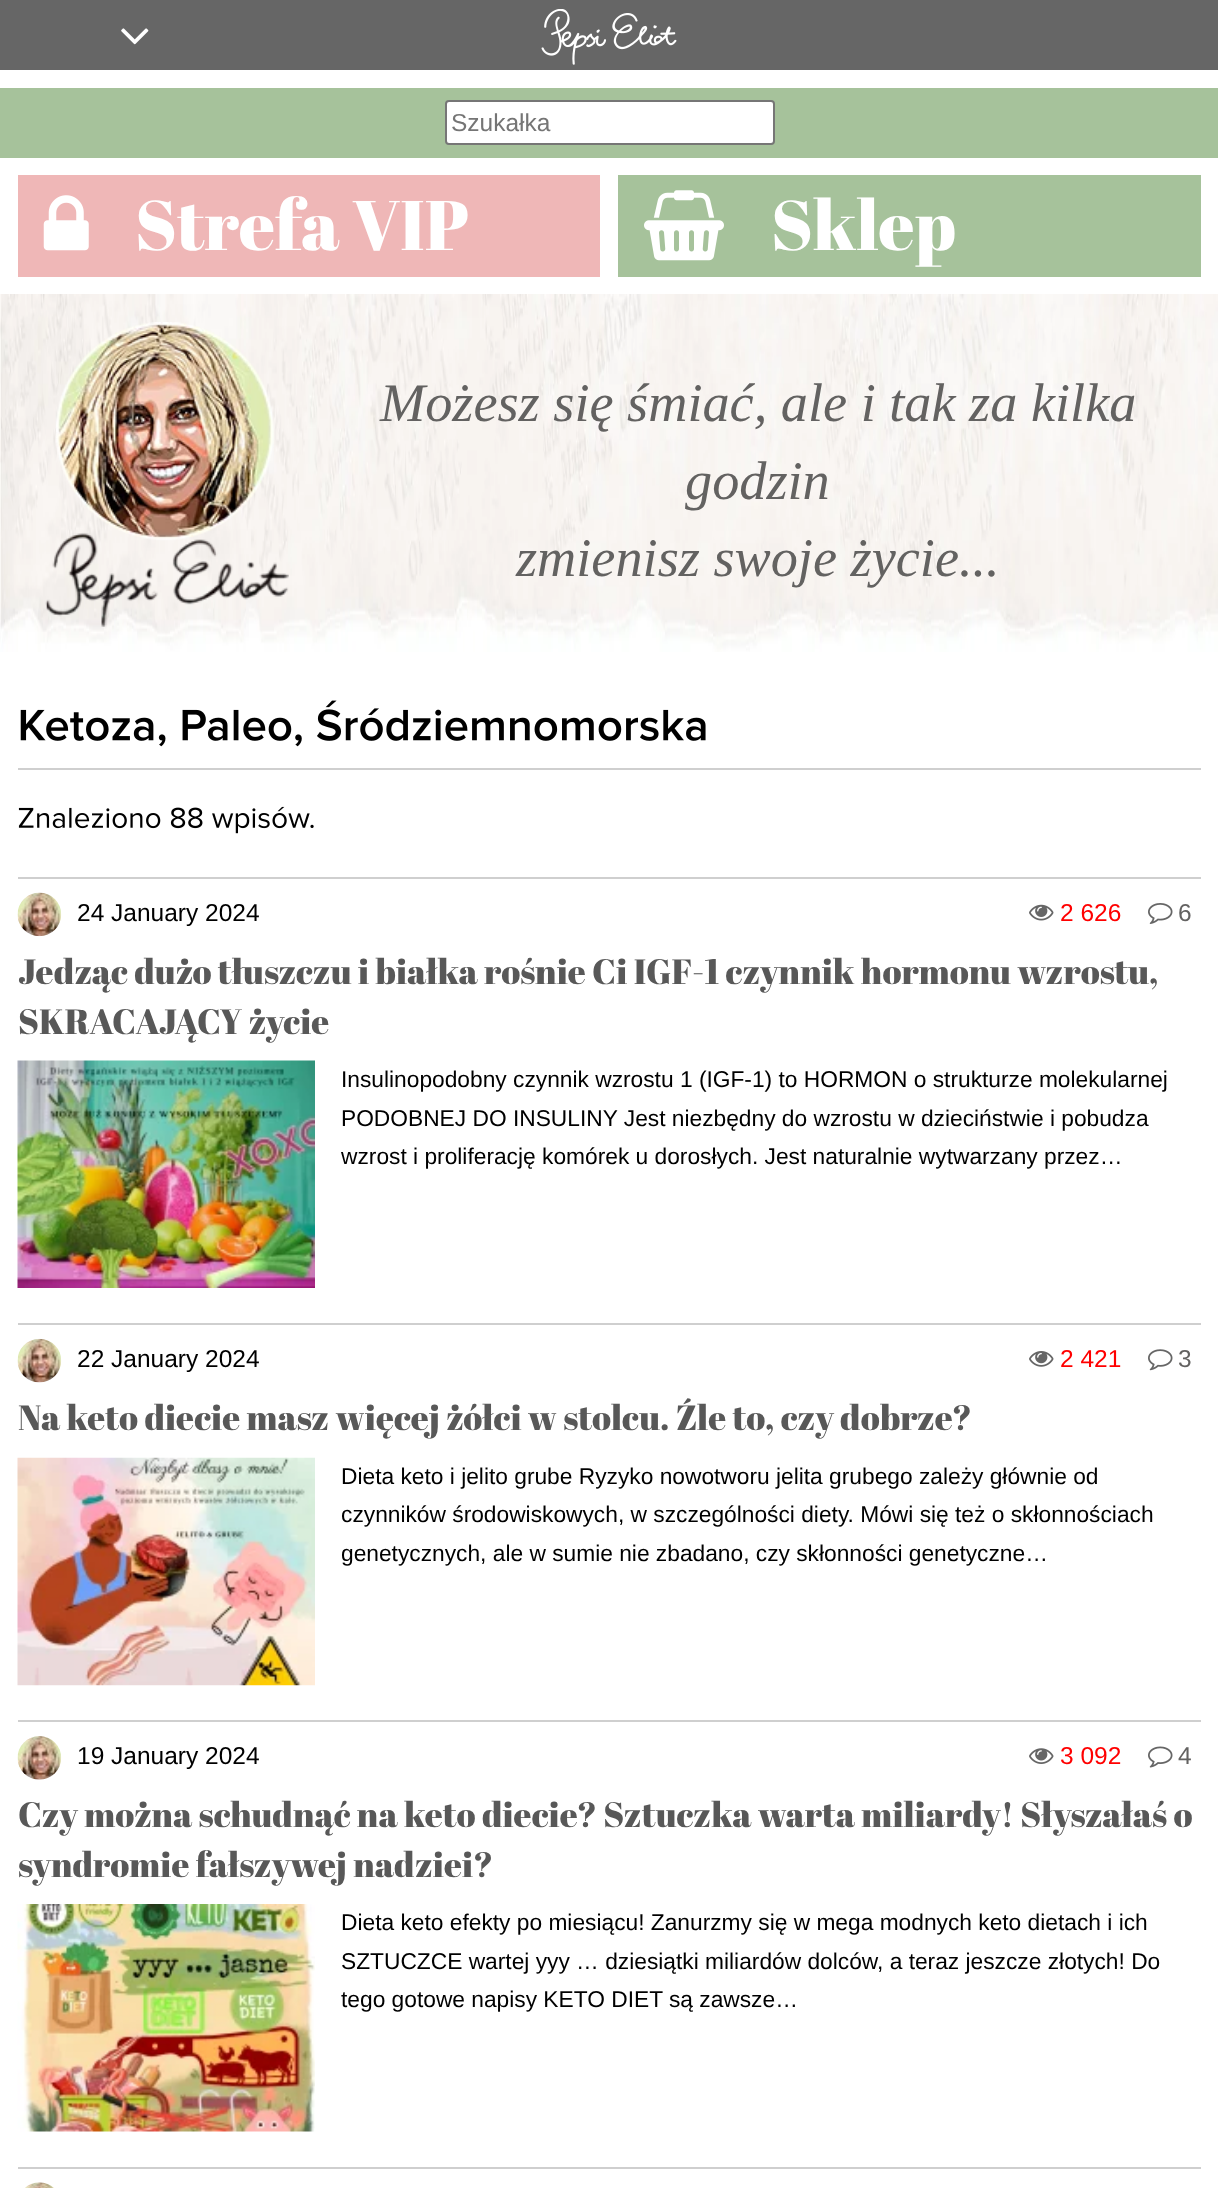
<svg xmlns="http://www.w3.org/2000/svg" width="1218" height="2188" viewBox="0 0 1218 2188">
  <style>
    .t1 { font: 24.5px Liberation Sans; fill: #757575; }
    .t2 { font: 70px Abril Fatface; fill: #fff; }
    .t3 { font: italic 54.25px Liberation Serif; fill: #636261; }
    .t4 { font: 24.5px Liberation Sans; fill: #000; }
    .t5 { font: 24.5px Liberation Sans; fill: #f00; }
    .t6 { font: 24.5px Liberation Sans; fill: #636261; }
    .t7 { font: 35px Abril Fatface; fill: #585858; }
    .t8 { font: 22.75px Liberation Sans; fill: #000; }
  </style>
  <rect width="100%" height="100%" fill="#fff"/>
  <rect x="0" y="0" width="1218" height="70" fill="#666"/>
  <image x="121" y="28" width="28" height="17" href="images/1.png"/>
  <image x="541" y="9" width="136" height="56" href="images/2.png"/>
  <rect x="0" y="88" width="1218" height="70" fill="#a6c29b"/>
  <rect x="446" y="101" width="328" height="43" rx="3" fill="#fff" stroke="#767676" stroke-width="2"/>
  <text x="451" y="131" class="t1">Szukałka</text>
  <rect x="18" y="175" width="582" height="102" fill="#efb7b7"/>
  <image x="43" y="195" width="46" height="56" href="images/3.png"/>
  <text x="135" y="250" class="t2">Strefa VIP</text>
  <rect x="618" y="175" width="583" height="102" fill="#a6c29b"/>
  <image x="644" y="190" width="80" height="71" href="images/4.png"/>
  <text x="771" y="250" class="t2">Sklep</text>
  <image x="0" y="294" width="1218" height="358" href="images/5.png"/>
  <image x="45" y="322" width="244" height="305" href="images/6.png"/>
  <text x="380" y="421" class="t3">Możesz się śmiać, ale i tak za kilka</text>
  <text x="685" y="499" class="t3">godzin</text>
  <text x="516" y="576" class="t3">zmienisz swoje życie...</text>
  <image x="20" y="700" width="686" height="47" href="images/7.png"/>
  <rect x="18" y="768" width="1183" height="2" fill="#cfcfcf"/>
  <image x="18" y="806" width="296" height="28" href="images/8.png"/>
  <rect x="18" y="877" width="1183" height="2" fill="#cfcfcf"/>
  <image x="17" y="892" width="45" height="45" href="images/9.png"/>
  <text x="77" y="921" class="t4">24 January 2024</text>
  <image x="1029" y="904" width="25" height="17" href="images/10.png"/>
  <text x="1060" y="921" class="t5">2 626</text>
  <image x="1148" y="903" width="25" height="21" href="images/11.png"/>
  <text x="1178" y="921" class="t6">6</text>
  <text x="18" y="984" class="t7">Jedząc dużo tłuszczu i białka rośnie Ci IGF-1 czynnik hormonu wzrostu,</text>
  <text x="18" y="1034" class="t7">SKRACAJĄCY życie</text>
  <image x="17" y="1060" width="298" height="228" href="images/12.png"/>
  <text x="341" y="1087" class="t8">Insulinopodobny czynnik wzrostu 1 (IGF-1) to HORMON o strukturze molekularnej</text>
  <text x="341" y="1126" class="t8">PODOBNEJ DO INSULINY Jest niezbędny do wzrostu w dzieciństwie i pobudza</text>
  <text x="341" y="1164" class="t8">wzrost i proliferację komórek u dorosłych. Jest naturalnie wytwarzany przez…</text>
  <rect x="18" y="1323" width="1183" height="2" fill="#cfcfcf"/>
  <image x="17" y="1338" width="45" height="45" href="images/13.png"/>
  <text x="77" y="1367" class="t4">22 January 2024</text>
  <image x="1029" y="1351" width="25" height="16" href="images/14.png"/>
  <text x="1060" y="1367" class="t5">2 421</text>
  <image x="1148" y="1349" width="25" height="22" href="images/15.png"/>
  <text x="1178" y="1367" class="t6">3</text>
  <text x="18" y="1430" class="t7">Na keto diecie masz więcej żółci w stolcu. Źle to, czy dobrze?</text>
  <image x="17" y="1457" width="298" height="229" href="images/16.png"/>
  <text x="341" y="1484" class="t8">Dieta keto i jelito grube Ryzyko nowotworu jelita grubego zależy głównie od</text>
  <text x="341" y="1522" class="t8">czynników środowiskowych, w szczególności diety. Mówi się też o skłonnościach</text>
  <text x="341" y="1561" class="t8">genetycznych, ale w sumie nie zbadano, czy skłonności genetyczne…</text>
  <rect x="18" y="1720" width="1183" height="2" fill="#cfcfcf"/>
  <image x="17" y="1736" width="45" height="44" href="images/17.png"/>
  <text x="77" y="1764" class="t4">19 January 2024</text>
  <image x="1029" y="1748" width="25" height="16" href="images/18.png"/>
  <text x="1060" y="1764" class="t5">3 092</text>
  <image x="1148" y="1746" width="25" height="22" href="images/19.png"/>
  <text x="1178" y="1764" class="t6">4</text>
  <text x="18" y="1827" class="t7">Czy można schudnąć na keto diecie? Sztuczka warta miliardy! Słyszałaś o</text>
  <text x="18" y="1877" class="t7">syndromie fałszywej nadziei?</text>
  <image x="17" y="1904" width="298" height="228" href="images/20.png"/>
  <text x="341" y="1930" class="t8">Dieta keto efekty po miesiącu! Zanurzmy się w mega modnych keto dietach i ich</text>
  <text x="341" y="1969" class="t8">SZTUCZCE wartej yyy … dziesiątki miliardów dolców, a teraz jeszcze złotych! Do</text>
  <text x="341" y="2007" class="t8">tego gotowe napisy KETO DIET są zawsze…</text>
  <rect x="18" y="2167" width="1183" height="2" fill="#cfcfcf"/>
  <image x="25" y="2182" width="29" height="6" href="images/21.png"/>
</svg>
